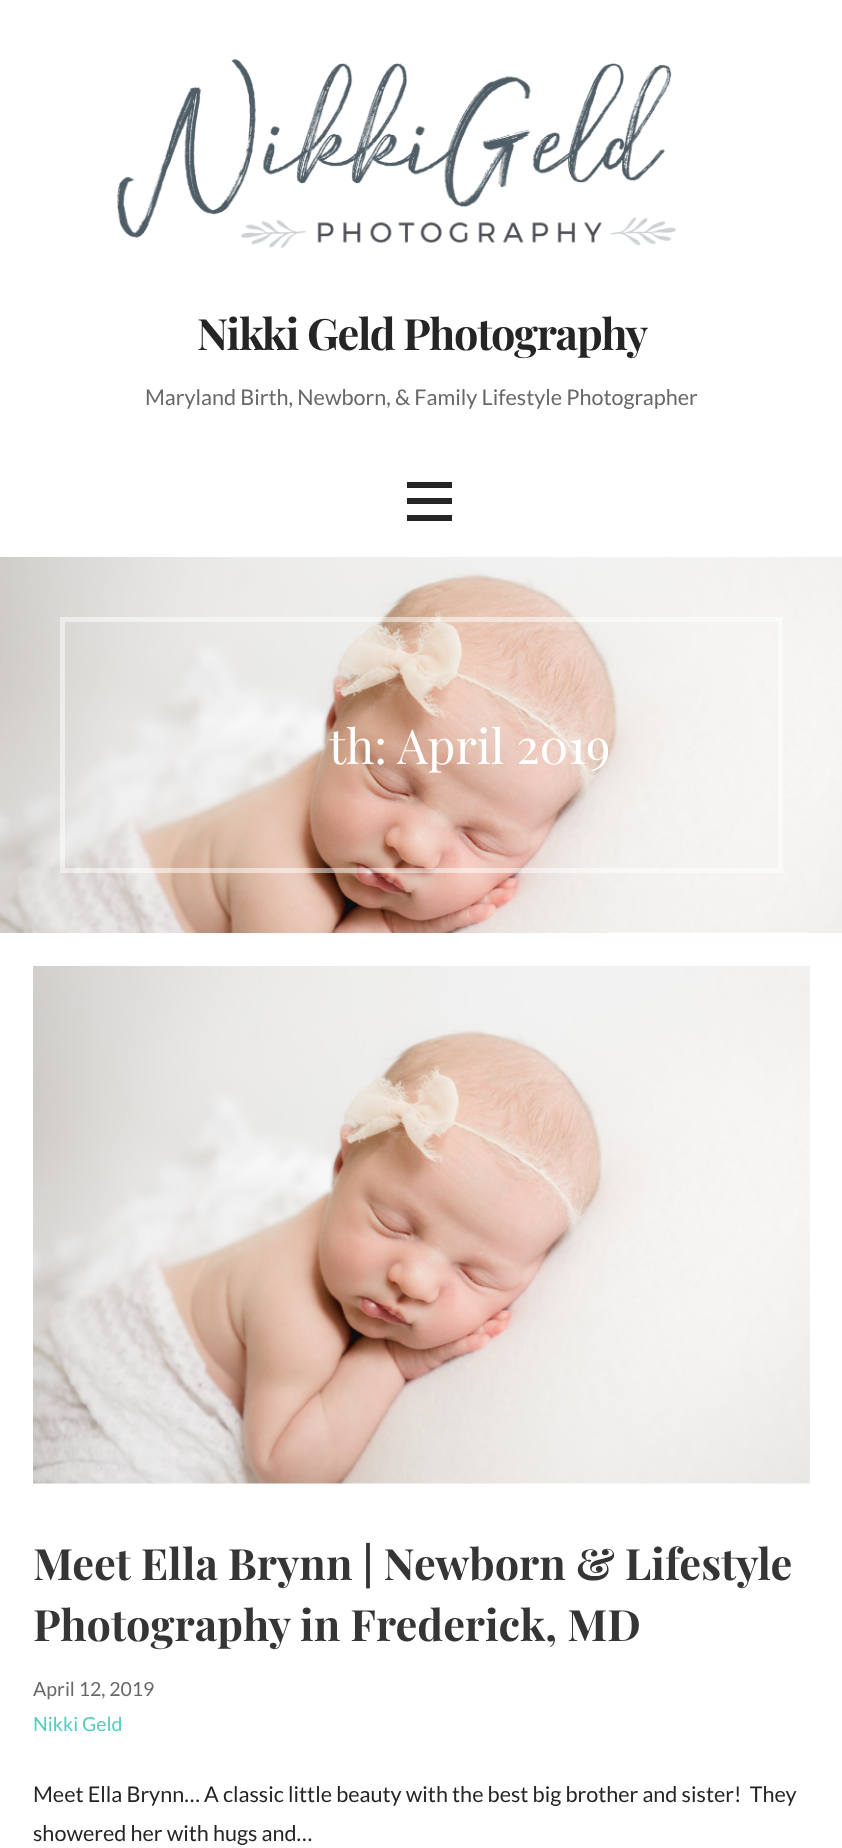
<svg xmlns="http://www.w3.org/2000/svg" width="842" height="1848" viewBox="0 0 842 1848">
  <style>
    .t1 { font: bold 43.25px Playfair Display; letter-spacing: -1.3px; fill: #252525; }
    .t2 { font: 21.6px Lato; fill: #686868; }
    .t3 { font: 48px Playfair Display; fill: #fff; }
    .t4 { font: bold 43.25px Playfair Display; fill: #353535; }
    .t5 { font: 19.5px Lato; fill: #686868; }
    .t6 { font: 19.5px Lato; fill: #54ccbe; }
    .t7 { font: 21.6px Lato; fill: #252525; }
  </style>
  <rect width="100%" height="100%" fill="#fff"/>
  <image x="116" y="59" width="560" height="190" href="images/1.png"/>
  <text x="197" y="350" class="t1">Nikki Geld Photography</text>
  <text x="145" y="405" class="t2">Maryland Birth, Newborn, &amp; Family Lifestyle Photographer</text>
  <rect x="407" y="482" width="45" height="6" fill="#252525"/>
  <rect x="407" y="498" width="45" height="6" fill="#252525"/>
  <rect x="407" y="515" width="45" height="6" fill="#252525"/>
  <image x="0" y="557" width="842" height="376" href="images/2.png"/>
  <rect x="62.5" y="619.5" width="718" height="251" fill="none" stroke="#ffffff80" stroke-width="5"/>
  <text x="329" y="764" class="t3">th: April 2019</text>
  <image x="33" y="966" width="777" height="518" href="images/3.png"/>
  <text x="33" y="1580" class="t4">Meet Ella Brynn | Newborn &amp; Lifestyle</text>
  <text x="33" y="1641" class="t4">Photography in Frederick, MD</text>
  <text x="33" y="1696" class="t5">April 12, 2019</text>
  <text x="33" y="1731" class="t6">Nikki Geld</text>
  <text x="33" y="1802" class="t7" xml:space="preserve">Meet Ella Brynn… A classic little beauty with the best big brother and sister!  They</text>
  <text x="33" y="1841" class="t7">showered her with hugs and…</text>
</svg>
